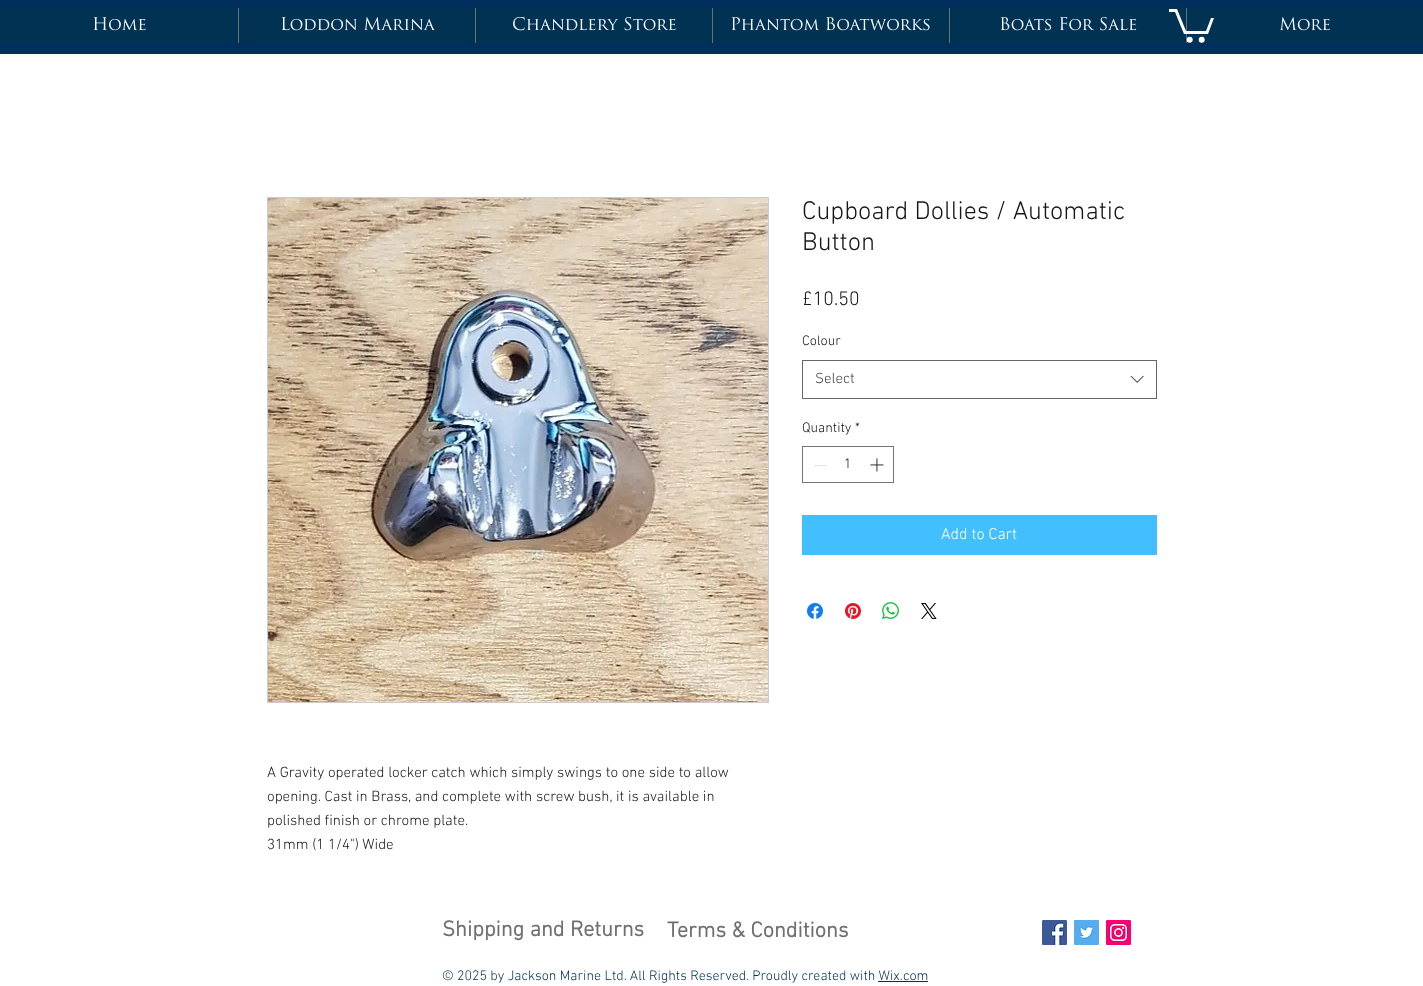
<svg xmlns="http://www.w3.org/2000/svg" width="1423" height="986" viewBox="0 0 1423 986">
  <style>
    .t1 { font: 300 26px 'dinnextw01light'; fill: #171717; }
    .t2 { font: 300 20px 'dinnextw01light'; fill: #171717; }
    .t3 { font: 300 14px 'dinnextw01light'; fill: #171717; }
    .t4 { font: 300 15px 'dinnextw01light'; fill: #444; }
    .t5 { font: 300 16px 'dinnextw01light'; fill: #fff; }
    .t6 { font: 300 15px 'dinnextw01light'; fill: #171717; }
    .t7 { font: bold 22px 'dinnextw01light'; fill: #707070; }
    .t8 { font: 300 14px 'dinnextw01light'; fill: #003254; }
  </style>
  <rect width="100%" height="100%" fill="#fff"/>
  <rect x="0" y="0" width="1423" height="54" fill="#002e5d"/>
  <rect x="0" y="8" width="1423" height="35" fill="#003254"/>
  <image x="93" y="17" width="53" height="14" href="images/1.png"/>
  <rect x="238" y="8" width="1" height="35" fill="#707070"/>
  <image x="281" y="17" width="154" height="14" href="images/2.png"/>
  <rect x="475" y="8" width="1" height="35" fill="#707070"/>
  <image x="513" y="17" width="163" height="14" href="images/3.png"/>
  <rect x="712" y="8" width="1" height="35" fill="#707070"/>
  <image x="731" y="17" width="199" height="14" href="images/4.png"/>
  <rect x="949" y="8" width="1" height="35" fill="#707070"/>
  <image x="1000" y="17" width="137" height="14" href="images/5.png"/>
  <rect x="1186" y="8" width="1" height="35" fill="#707070"/>
  <image x="1280" y="17" width="50" height="14" href="images/6.png"/>
  <path d="M1214 18L1208 34H1184L1175 12H1169V9H1177L1186 31H1206L1211 18" fill="#fff"/>
  <circle cx="1201.7" cy="39.8" r="3" fill="#fff"/>
  <circle cx="1189.7" cy="39.8" r="3" fill="#fff"/>
  <text x="802" y="219" class="t1">Cupboard Dollies / Automatic</text>
  <text x="802" y="250" class="t1">Button</text>
  <text x="802" y="305" class="t2">£10.50</text>
  <text x="802" y="345" class="t3">Colour</text>
  <rect x="802.5" y="360.5" width="354" height="38" fill="none" stroke="#666"/>
  <text x="815" y="383" class="t4">Select</text>
  <image x="1130" y="375" width="14" height="8" href="images/7.png"/>
  <text x="802" y="432" class="t3">Quantity</text>
  <text x="855" y="432" class="t3">*</text>
  <rect x="802.5" y="446.5" width="91" height="36" fill="none" stroke="#747474"/>
  <rect x="814" y="465" width="13" height="1" fill="#e3e3e3"/>
  <text x="844" y="468" class="t3">1</text>
  <image x="870" y="458" width="14" height="14" href="images/8.png"/>
  <rect x="802" y="515" width="355" height="40" fill="#41bfff"/>
  <text x="941" y="539" class="t5">Add to Cart</text>
  <image x="807" y="603" width="16" height="16" href="images/9.png"/>
  <image x="845" y="603" width="16" height="16" href="images/10.png"/>
  <image x="882" y="602" width="17" height="17" href="images/11.png"/>
  <image x="921" y="603" width="16" height="16" href="images/12.png"/>
  <rect x="267.5" y="197.5" width="501" height="505" fill="none" stroke="#ccc"/>
  <image x="268" y="198" width="500" height="504" href="images/13.png"/>
  <text x="267" y="777" class="t6">A Gravity operated locker catch which simply swings to one side to allow</text>
  <text x="267" y="801" class="t6">opening. Cast in Brass, and complete with screw bush, it is available in</text>
  <text x="267" y="825" class="t6">polished finish or chrome plate.</text>
  <text x="267" y="849" class="t6">31mm (1 1/4") Wide</text>
  <text x="442" y="936" class="t7">Shipping and Returns</text>
  <text x="667" y="937" class="t7">Terms &amp; Conditions</text>
  <image x="1042" y="920" width="25" height="25" href="images/14.png"/>
  <image x="1074" y="920" width="25" height="25" href="images/15.png"/>
  <image x="1106" y="920" width="25" height="25" href="images/16.png"/>
  <text x="442" y="980" class="t8">© 2025 by Jackson Marine Ltd. All Rights Reserved. Proudly created with Wix.com</text>
  <rect x="878" y="981" width="50" height="1" fill="#003254"/>
</svg>
